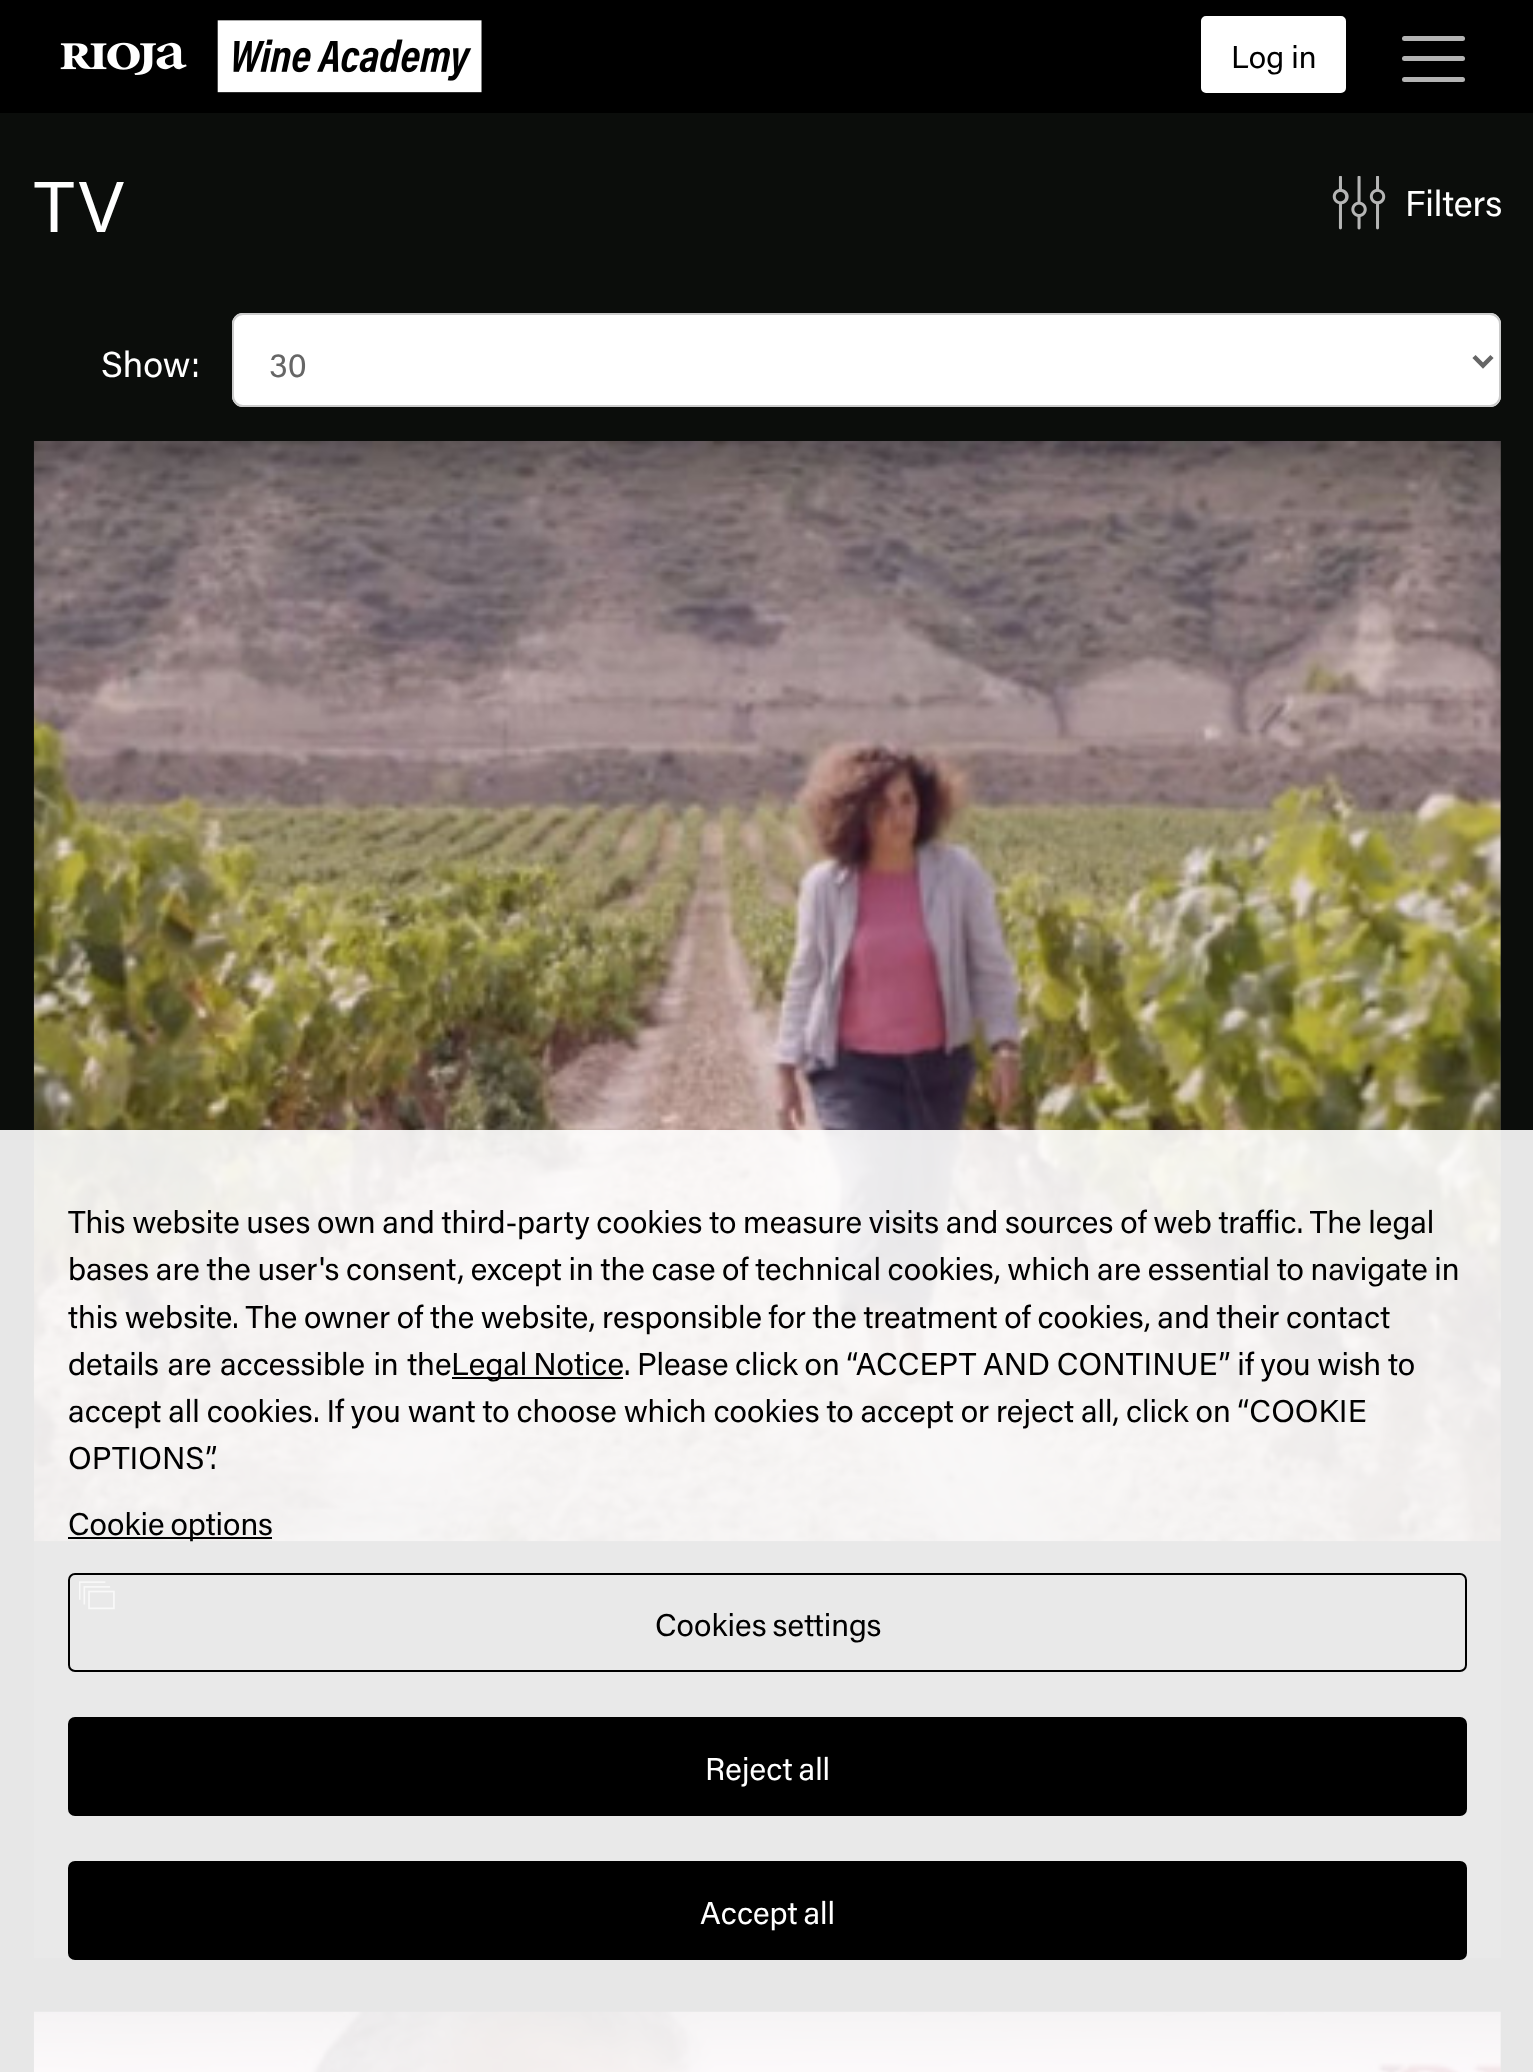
<svg xmlns="http://www.w3.org/2000/svg" width="1533" height="2072" viewBox="0 0 1533 2072">
  <style>
    .t1 { font: 31.5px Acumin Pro; fill: #000; }
    .t2 { font: 72px Acumin Pro; fill: #fff; }
    .t3 { font: 36px Acumin Pro; fill: #fff; }
    .t4 { font: 34px Acumin Pro; fill: #666; }
    .t5 { font: 31.5px Acumin Pro; fill: #fff; }
  </style>
  <rect width="100%" height="100%" fill="#0b0d0b"/>
  <rect x="0" y="0" width="1533" height="113" fill="#000"/>
  <image x="60" y="20" width="422" height="73" href="images/1.png"/>
  <rect x="1200" y="15" width="147" height="79" rx="6" fill="#fff" stroke="#000" stroke-width="2"/>
  <text x="1231" y="68" word-spacing="-1" class="t1">Log in</text>
  <rect x="1402" y="36" width="63" height="5" rx="2.5" fill="#b3b3b3"/>
  <rect x="1402" y="56" width="63" height="5" rx="2.5" fill="#b3b3b3"/>
  <rect x="1402" y="77" width="63" height="5" rx="2.5" fill="#b3b3b3"/>
  <text x="34" y="232" class="t2">TV</text>
  <image x="1332" y="176" width="54" height="54" href="images/2.png"/>
  <text x="1405" y="216" class="t3">Filters</text>
  <text x="101" y="377" class="t3">Show:</text>
  <rect x="232" y="313" width="1269" height="94" rx="11" fill="#fff"/>
  <path d="M1474 356.5L1483 365.5L1492 356.5" fill="none" stroke="#666" stroke-width="4.5"/>
  <rect x="233" y="314" width="1267" height="92" rx="10" fill="none" stroke="#ccc" stroke-width="2"/>
  <text x="269" y="377" class="t4">30</text>
  <rect x="34" y="1541" width="1467" height="417" fill="#242524"/>
  <rect x="1500" y="441" width="1" height="1100" fill="#3a3a3a"/>
  <image x="33" y="441" width="1468" height="1101" href="images/3.png"/>
  <image x="79" y="1581" width="36" height="29" href="images/4.png"/>
  <rect x="1500" y="2012" width="1" height="60" fill="#393b39"/>
  <image x="33" y="2011" width="1468" height="61" href="images/5.png"/>
  <rect x="0" y="1130" width="1533" height="942" fill="#ffffffe6"/>
  <text x="68" y="1233" word-spacing="-1.25" class="t1">This website uses own and third-party cookies to measure visits and sources of web traffic. The legal</text>
  <text x="68" y="1280" word-spacing="-1.25" class="t1">bases are the user's consent, except in the case of technical cookies, which are essential to navigate in</text>
  <text x="68" y="1328" word-spacing="-1.25" class="t1">this website. The owner of the website, responsible for the treatment of cookies, and their contact</text>
  <text x="68" y="1375" word-spacing="0.5" class="t1">details are accessible in the</text>
  <rect x="452" y="1377" width="171" height="2" fill="#000"/>
  <text x="451" y="1375" word-spacing="-2" class="t1">Legal Notice</text>
  <text x="624" y="1375" word-spacing="-1.25" class="t1">. Please click on “ACCEPT AND CONTINUE” if you wish to</text>
  <text x="68" y="1422" word-spacing="-1.1" class="t1">accept all cookies. If you want to choose which cookies to accept or reject all, click on “COOKIE</text>
  <text x="68" y="1469" class="t1">OPTIONS”.</text>
  <rect x="68" y="1537" width="204" height="2" fill="#000"/>
  <text x="68" y="1535" word-spacing="-2" class="t1">Cookie options</text>
  <rect x="69" y="1574" width="1397" height="97" rx="6" fill="none" stroke="#000" stroke-width="2"/>
  <text x="655" y="1636" word-spacing="-2" class="t1">Cookies settings</text>
  <rect x="69" y="1718" width="1397" height="97" rx="6" fill="#000" stroke="#000" stroke-width="2"/>
  <text x="705" y="1780" word-spacing="-2" class="t5">Reject all</text>
  <rect x="69" y="1862" width="1397" height="97" rx="6" fill="#000" stroke="#000" stroke-width="2"/>
  <text x="700" y="1924" word-spacing="-2" class="t5">Accept all</text>
</svg>
